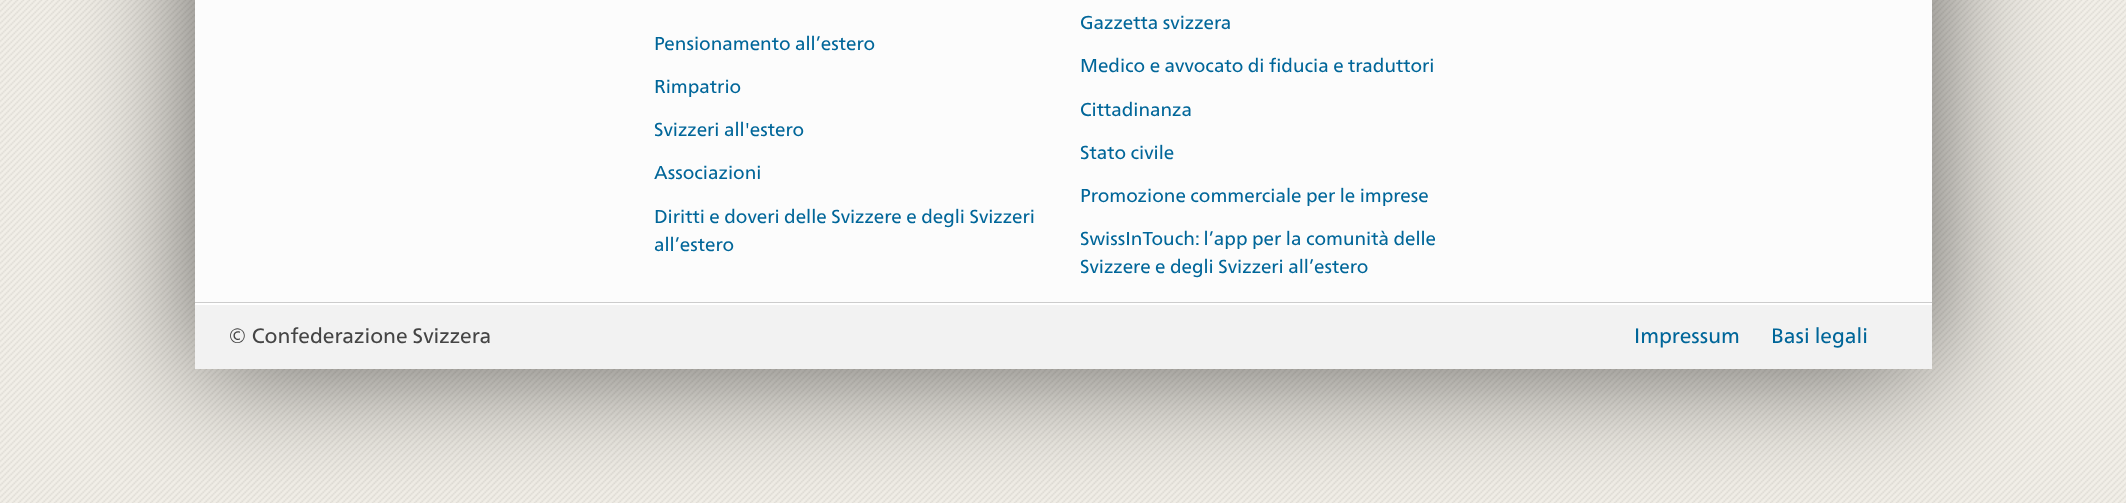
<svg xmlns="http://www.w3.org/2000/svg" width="2126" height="503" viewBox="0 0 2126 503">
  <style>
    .t1 { font: 18.75px 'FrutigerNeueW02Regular'; fill: #069; }
    .t2 { font: 20.9px 'FrutigerNeueW02Regular'; fill: #454545; }
    .t3 { font: 20.9px 'FrutigerNeueW02Regular'; fill: #069; }
  </style>
  <defs>
    <linearGradient id="g1" gradientUnits="userSpaceOnUse" x1="1064" y1="-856" x2="1064" y2="302"><stop offset="0" stop-color="#f4f4f4"/><stop offset="0.06" stop-color="#fcfcfc"/></linearGradient>
  </defs>
  <rect width="100%" height="100%" fill="#fff"/>
  <image x="0" y="0" width="2126" height="503" href="images/1.png"/>
  <rect x="195" y="-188" width="1737" height="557" fill="#00000099" filter="blur(62.5px)"/>
  <rect x="195" y="0" width="1737" height="302" fill="url(#g1)"/>
  <rect x="195" y="302" width="1737" height="1" fill="#ccc"/>
  <text x="654" y="50" class="t1">Pensionamento all’estero</text>
  <text x="654" y="93" class="t1">Rimpatrio</text>
  <text x="654" y="136" class="t1">Svizzeri all'estero</text>
  <text x="654" y="179" class="t1">Associazioni</text>
  <text x="654" y="223" class="t1">Diritti e doveri delle Svizzere e degli Svizzeri</text>
  <text x="654" y="251" class="t1">all’estero</text>
  <text x="1080" y="29" class="t1">Gazzetta svizzera</text>
  <text x="1080" y="72" class="t1">Medico e avvocato di fiducia e traduttori</text>
  <text x="1080" y="116" class="t1">Cittadinanza</text>
  <text x="1080" y="159" class="t1">Stato civile</text>
  <text x="1080" y="202" class="t1">Promozione commerciale per le imprese</text>
  <text x="1080" y="245" class="t1">SwissInTouch: l’app per la comunità delle</text>
  <text x="1080" y="273" class="t1">Svizzere e degli Svizzeri all’estero</text>
  <rect x="195" y="305" width="1737" height="64" fill="#f2f2f2"/>
  <rect x="195" y="303" width="1737" height="2" fill="#fff"/>
  <text x="228" y="343" class="t2">© Confederazione Svizzera</text>
  <text x="1634" y="343" class="t3">Impressum</text>
  <text x="1771" y="343" class="t3">Basi legali</text>
</svg>
